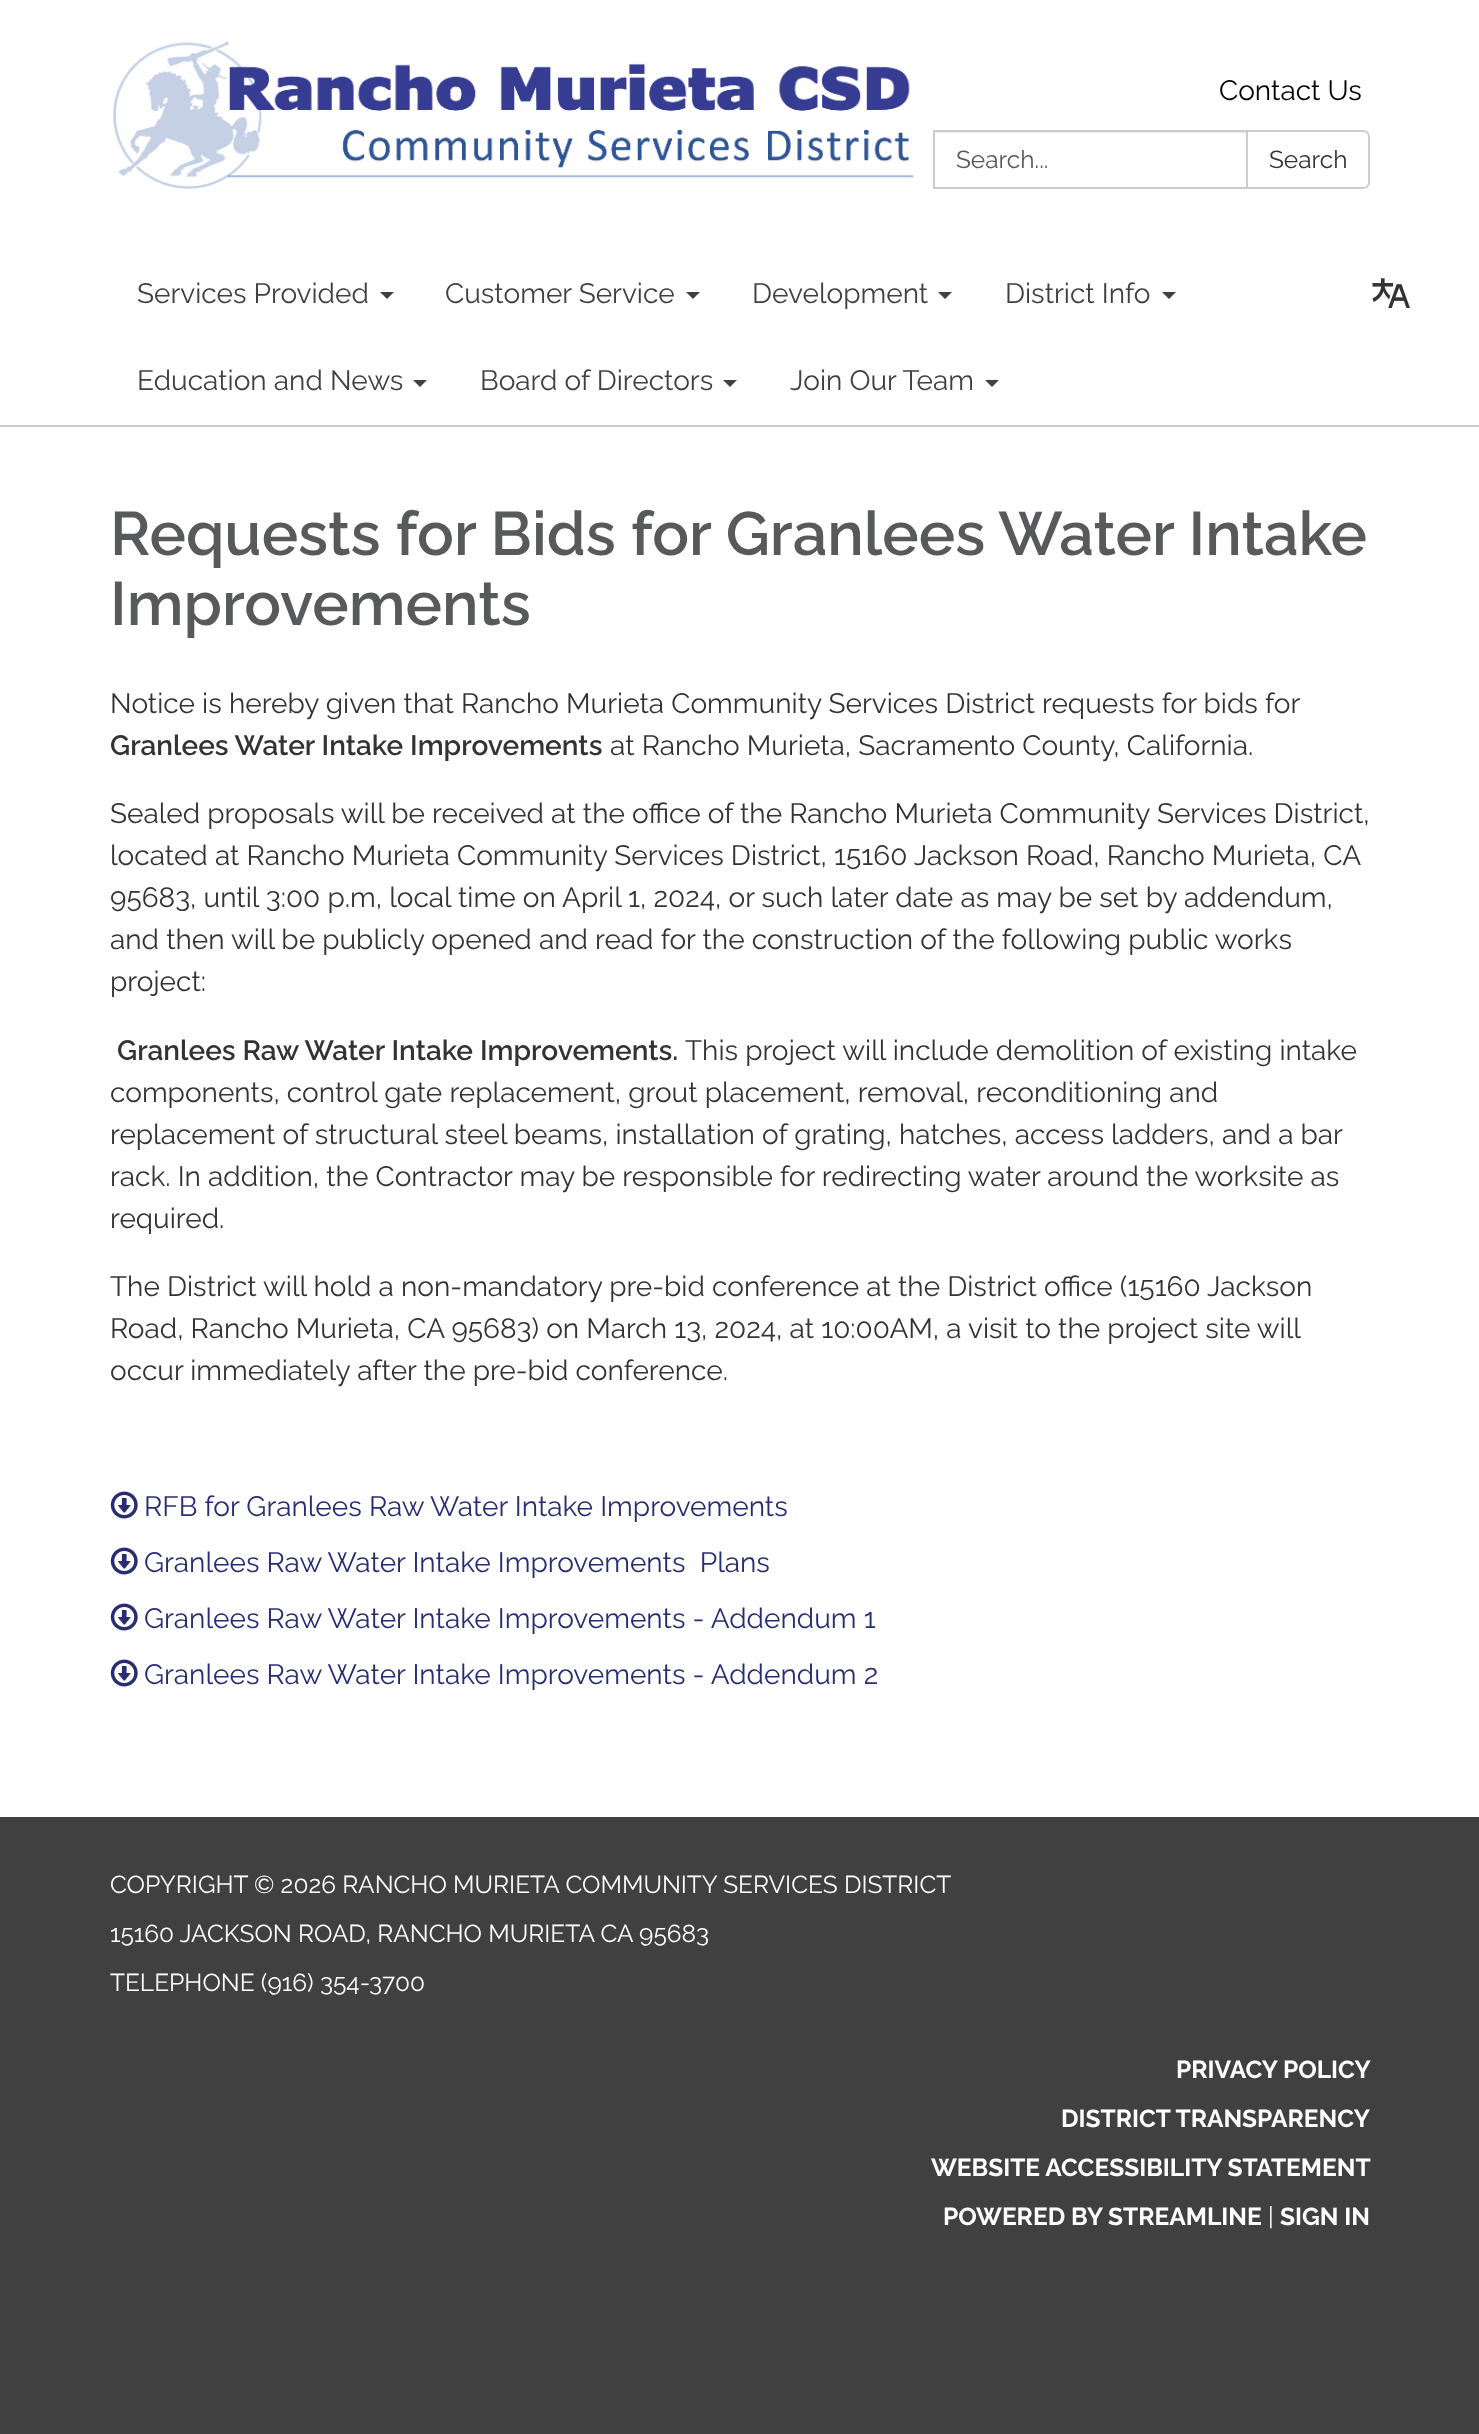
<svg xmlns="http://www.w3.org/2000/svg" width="1479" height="2434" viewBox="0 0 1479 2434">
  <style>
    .t1 { font: 28px Raleway; fill: #000; }
    .t2 { font: 24.5px Raleway; fill: #58595b; }
    .t3 { font: 24.5px Raleway; fill: #333; }
    .t4 { font: 28px Raleway; fill: #404041; }
    .t5 { font: 600 61.25px Raleway; fill: #58595b; }
    .t6 { font: 28px Raleway; fill: #333; }
    .t7 { font: 600 28px Raleway; fill: #333; }
    .t8 { font: 28px Raleway; fill: #272c73; }
    .t9 { font: 24.5px Raleway; fill: #fff; }
    .t10 { font: bold 24.5px Raleway; fill: #fff; }
  </style>
  <rect width="100%" height="100%" fill="#404041"/>
  <rect x="0" y="0" width="1479" height="425" fill="#fff"/>
  <image x="113" y="41" width="801" height="148" href="images/1.png"/>
  <text x="1219" y="100" class="t1">Contact Us</text>
  <rect x="935" y="132" width="311" height="1" fill="#ececec"/>
  <rect x="934" y="131" width="313" height="57" fill="none" stroke="#ccc" stroke-width="2"/>
  <text x="956" y="168" class="t2">Search...</text>
  <path d="M1247 131H1363C1366.5 131 1369 133.5 1369 137V182C1369 185.5 1366.5 188 1363 188H1247Z" fill="#fff" stroke="#ccc" stroke-width="2"/>
  <text x="1269" y="168" class="t3">Search</text>
  <text x="137" y="303" class="t4">Services Provided</text>
  <path d="M380 292H394L387 299Z" fill="#404041"/>
  <text x="445" y="303" class="t4">Customer Service</text>
  <path d="M686 292H700L693 299Z" fill="#404041"/>
  <text x="752" y="303" class="t4">Development</text>
  <path d="M938 292H952L945 299Z" fill="#404041"/>
  <text x="1005" y="303" class="t4">District Info</text>
  <path d="M1162 292H1176L1169 299Z" fill="#404041"/>
  <text x="137" y="390" class="t4">Education and News</text>
  <path d="M413 380H427L420 387Z" fill="#404041"/>
  <text x="480" y="390" class="t4">Board of Directors</text>
  <path d="M723 380H737L730 387Z" fill="#404041"/>
  <text x="790" y="390" class="t4">Join Our Team</text>
  <path d="M985 380H999L992 387Z" fill="#404041"/>
  <image x="1372" y="278" width="38" height="30" href="images/2.png"/>
  <rect x="0" y="427" width="1479" height="1390" fill="#fff"/>
  <rect x="0" y="425" width="1479" height="2" fill="#ccc"/>
  <text x="110" y="555" class="t5">Requests for Bids for Granlees Water Intake</text>
  <text x="110" y="625" class="t5">Improvements</text>
  <text x="110" y="713" class="t6">Notice is hereby given that Rancho Murieta Community Services District requests for bids for</text>
  <text x="110" y="755" class="t7">Granlees Water Intake Improvements</text>
  <text x="610" y="755" class="t6">at Rancho Murieta, Sacramento County, California.</text>
  <text x="110" y="823" class="t6">Sealed proposals will be received at the office of the Rancho Murieta Community Services District,</text>
  <text x="110" y="865" class="t6">located at Rancho Murieta Community Services District, 15160 Jackson Road, Rancho Murieta, CA</text>
  <text x="110" y="907" class="t6">95683, until 3:00 p.m, local time on April 1, 2024, or such later date as may be set by addendum,</text>
  <text x="110" y="949" class="t6">and then will be publicly opened and read for the construction of the following public works</text>
  <text x="110" y="991" class="t6">project:</text>
  <text x="117" y="1060" class="t7">Granlees Raw Water Intake Improvements.</text>
  <text x="685" y="1060" class="t6">This project will include demolition of existing intake</text>
  <text x="110" y="1102" class="t6">components, control gate replacement, grout placement, removal, reconditioning and</text>
  <text x="110" y="1144" class="t6">replacement of structural steel beams, installation of grating, hatches, access ladders, and a bar</text>
  <text x="110" y="1186" class="t6">rack. In addition, the Contractor may be responsible for redirecting water around the worksite as</text>
  <text x="110" y="1228" class="t6">required.</text>
  <text x="110" y="1296" class="t6">The District will hold a non-mandatory pre-bid conference at the District office (15160 Jackson</text>
  <text x="110" y="1338" class="t6">Road, Rancho Murieta, CA 95683) on March 13, 2024, at 10:00AM, a visit to the project site will</text>
  <text x="110" y="1380" class="t6">occur immediately after the pre-bid conference.</text>
  <image x="110" y="1491" width="28" height="28" href="images/3.png"/>
  <text x="144" y="1516" class="t8">RFB for Granlees Raw Water Intake Improvements</text>
  <image x="110" y="1547" width="28" height="28" href="images/3.png"/>
  <text x="144" y="1572" class="t8" xml:space="preserve">Granlees Raw Water Intake Improvements  Plans</text>
  <image x="110" y="1603" width="28" height="28" href="images/3.png"/>
  <text x="144" y="1628" class="t8">Granlees Raw Water Intake Improvements - Addendum 1</text>
  <image x="110" y="1659" width="28" height="28" href="images/3.png"/>
  <text x="144" y="1684" class="t8">Granlees Raw Water Intake Improvements - Addendum 2</text>
  <text x="110" y="1893" class="t9">COPYRIGHT © 2026 RANCHO MURIETA COMMUNITY SERVICES DISTRICT</text>
  <text x="110" y="1942" class="t9">15160 JACKSON ROAD, RANCHO MURIETA CA 95683</text>
  <text x="110" y="1991" class="t9">TELEPHONE (916) 354-3700</text>
  <text x="1176" y="2078" class="t10">PRIVACY POLICY</text>
  <text x="1061" y="2127" class="t10">DISTRICT TRANSPARENCY</text>
  <text x="931" y="2176" class="t10">WEBSITE ACCESSIBILITY STATEMENT</text>
  <text x="943" y="2225" class="t10">POWERED BY STREAMLINE</text>
  <text x="1268" y="2225" class="t9">|</text>
  <text x="1280" y="2225" class="t10">SIGN IN</text>
</svg>
